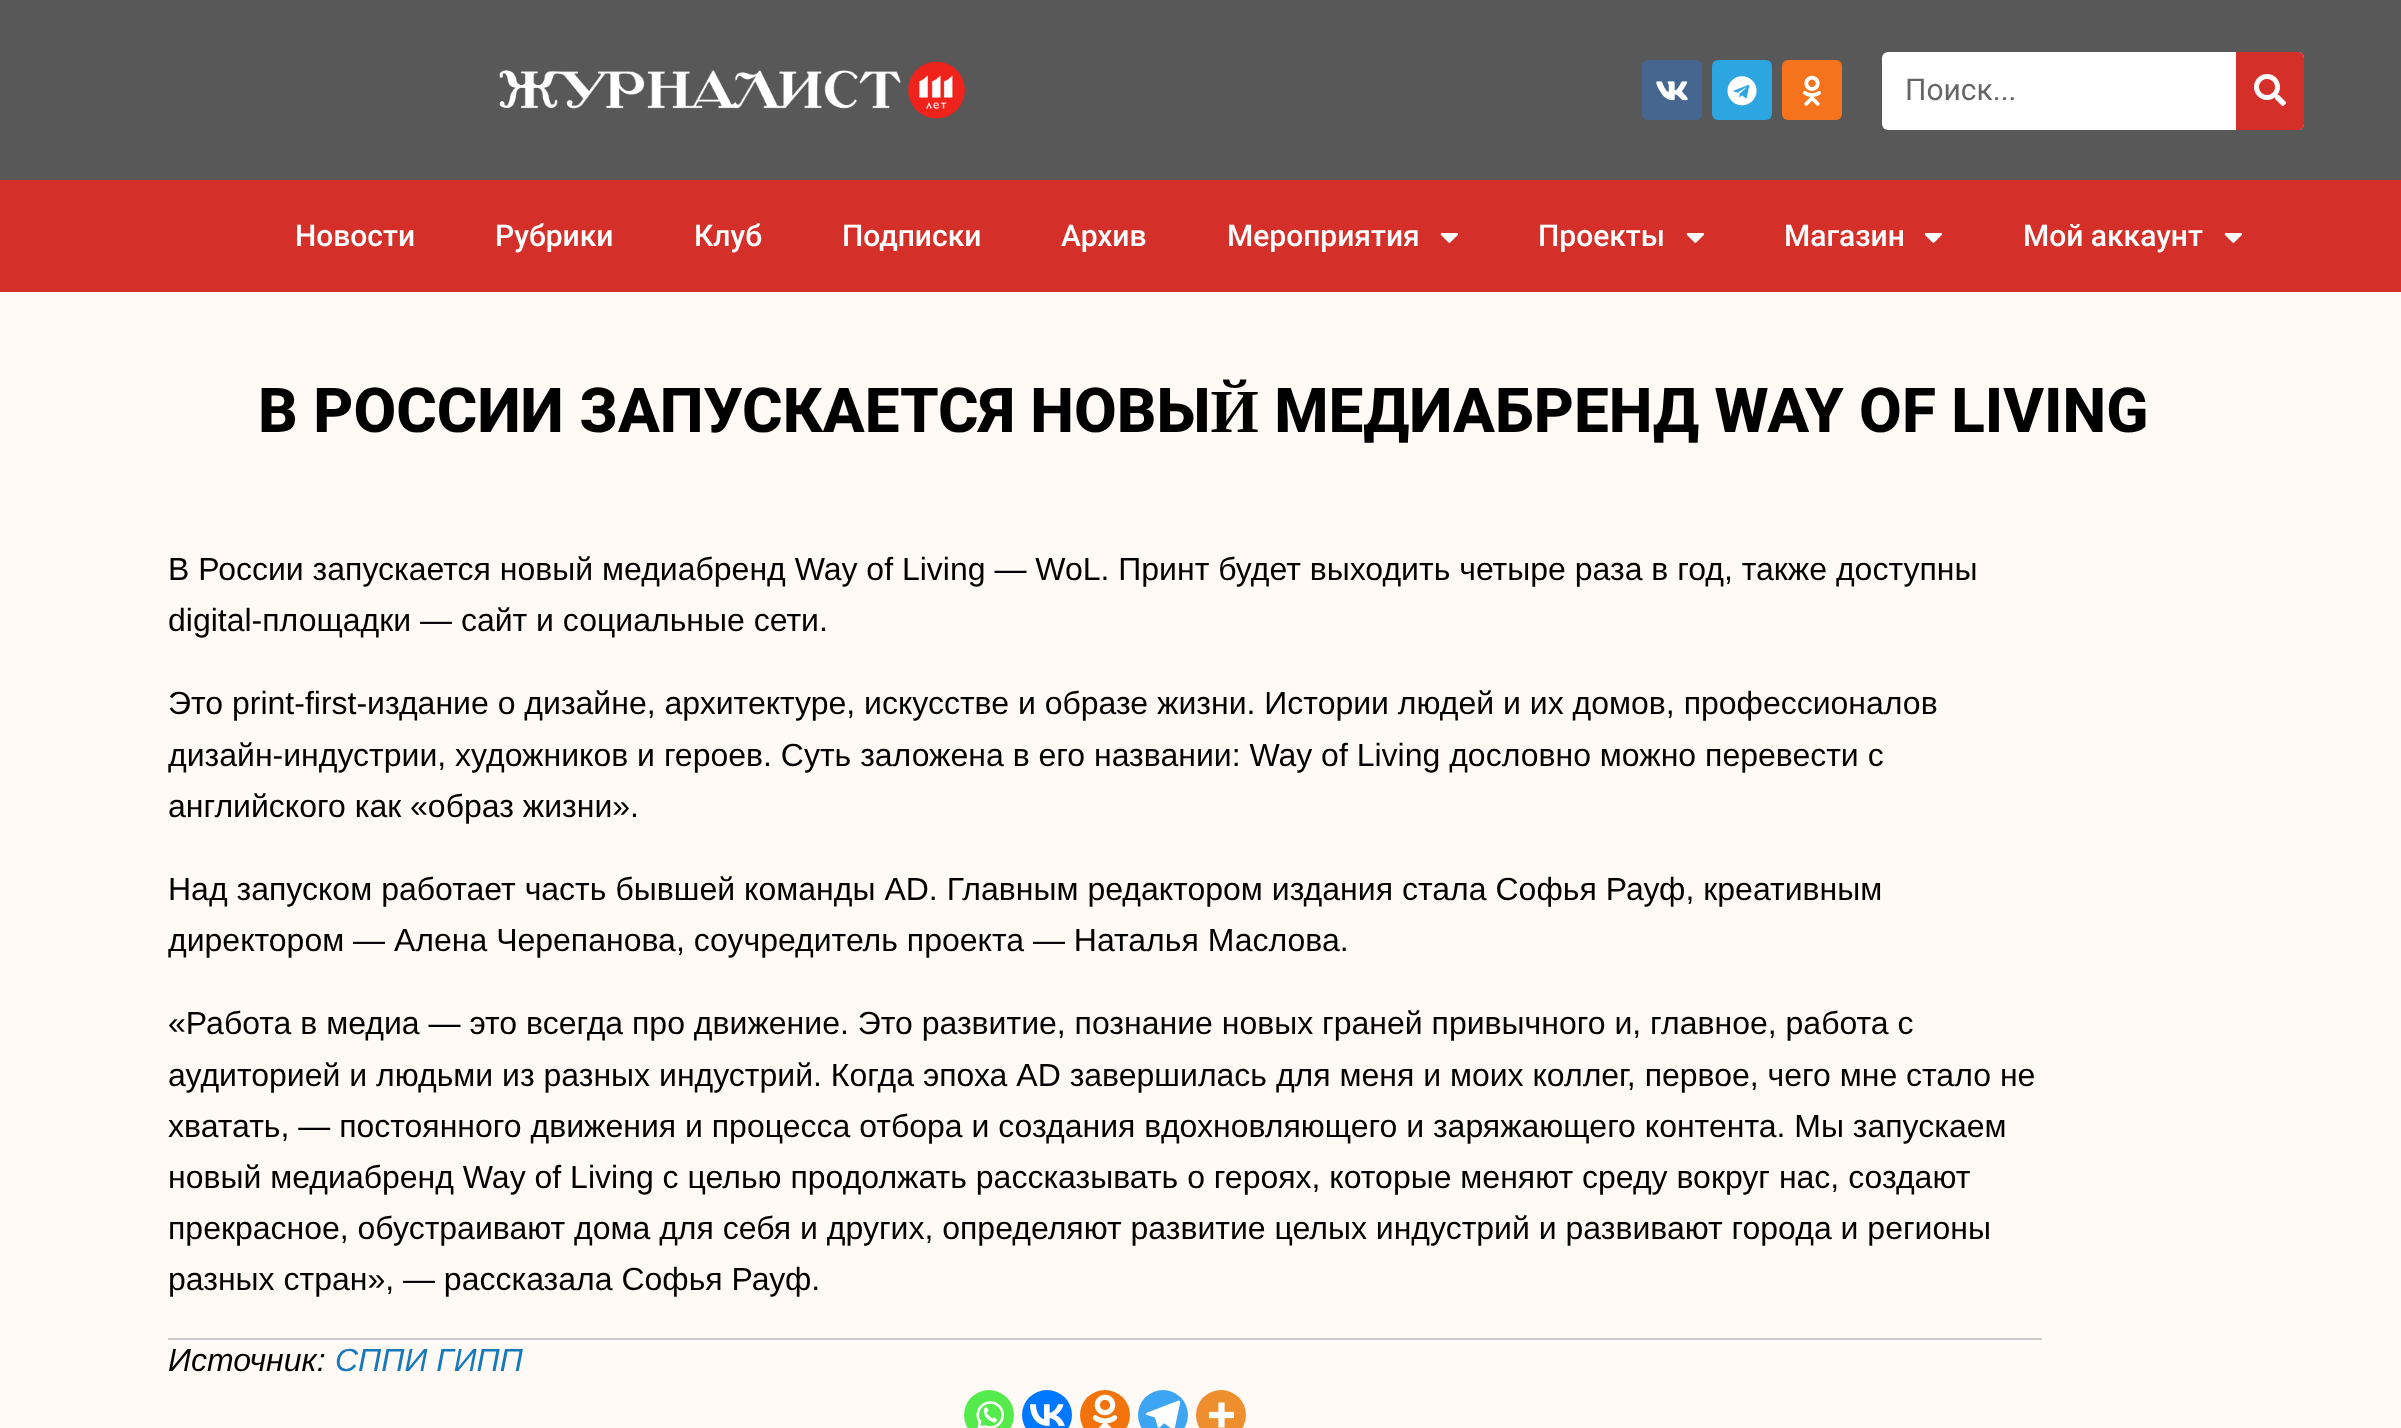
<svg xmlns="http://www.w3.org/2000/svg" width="2401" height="1428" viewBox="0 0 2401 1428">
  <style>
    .t1 { font: 30px Roboto; fill: #666; }
    .t2 { font: 500 30px Roboto; fill: #fff; }
    .t3 { font: 800 62px Roboto; fill: #000; }
    .t4 { font: 32px Liberation Sans; fill: #000; }
    .t5 { font: italic 32px Liberation Sans; fill: #000; }
    .t6 { font: italic 32px Liberation Sans; fill: #1779ba; }
  </style>
  <rect width="100%" height="100%" fill="#fffaf5"/>
  <rect x="0" y="0" width="2401" height="180" fill="#595858"/>
  <image x="499" y="61" width="466" height="58" href="images/1.png"/>
  <rect x="1642" y="60" width="60" height="60" rx="6" fill="#45668e"/>
  <image x="1656" y="81" width="32" height="20" href="images/2.png"/>
  <rect x="1712" y="60" width="60" height="60" rx="6" fill="#2ca5e0"/>
  <image x="1727" y="76" width="30" height="30" href="images/3.png"/>
  <rect x="1782" y="60" width="60" height="60" rx="6" fill="#f4731c"/>
  <image x="1803" y="75" width="18" height="31" href="images/4.png"/>
  <rect x="1882" y="52" width="422" height="78" rx="6" fill="#fff"/>
  <text x="1905" y="100" class="t1">Поиск...</text>
  <path d="M2236 52H2298C2301.5 52 2304 54.5 2304 58V124C2304 127.5 2301.5 130 2298 130H2236Z" fill="#d52f29"/>
  <image x="2254" y="74" width="32" height="32" href="images/5.png"/>
  <rect x="0" y="180" width="2401" height="112" fill="#d52f29"/>
  <text x="295" y="246" class="t2">Новости</text>
  <text x="495" y="246" class="t2">Рубрики</text>
  <text x="694" y="246" class="t2">Клуб</text>
  <text x="842" y="246" class="t2">Подписки</text>
  <text x="1061" y="246" class="t2">Архив</text>
  <text x="1227" y="246" class="t2">Мероприятия</text>
  <image x="1440" y="233" width="19" height="10" href="images/6.png"/>
  <text x="1538" y="246" class="t2">Проекты</text>
  <image x="1686" y="233" width="19" height="10" href="images/6.png"/>
  <text x="1784" y="246" class="t2">Магазин</text>
  <image x="1924" y="233" width="19" height="10" href="images/6.png"/>
  <text x="2023" y="246" class="t2">Мой аккаунт</text>
  <image x="2224" y="233" width="19" height="10" href="images/6.png"/>
  <text x="258" y="432" class="t3">В РОССИИ ЗАПУСКАЕТСЯ НОВЫЙ МЕДИАБРЕНД WAY OF LIVING</text>
  <text x="168" y="580" class="t4">В России запускается новый медиабренд Way of Living — WoL. Принт будет выходить четыре раза в год, также доступны</text>
  <text x="168" y="631" class="t4">digital-площадки — сайт и социальные сети.</text>
  <text x="168" y="714" class="t4">Это print-first-издание о дизайне, архитектуре, искусстве и образе жизни. Истории людей и их домов, профессионалов</text>
  <text x="168" y="766" class="t4">дизайн-индустрии, художников и героев. Суть заложена в его названии: Way of Living дословно можно перевести с</text>
  <text x="168" y="817" class="t4">английского как «образ жизни».</text>
  <text x="168" y="900" word-spacing="0.1" class="t4">Над запуском работает часть бывшей команды AD. Главным редактором издания стала Софья Рауф, креативным</text>
  <text x="168" y="951" class="t4">директором — Алена Черепанова, соучредитель проекта — Наталья Маслова.</text>
  <text x="168" y="1034" class="t4">«Работа в медиа — это всегда про движение. Это развитие, познание новых граней привычного и, главное, работа с</text>
  <text x="168" y="1086" class="t4">аудиторией и людьми из разных индустрий. Когда эпоха AD завершилась для меня и моих коллег, первое, чего мне стало не</text>
  <text x="168" y="1137" class="t4">хватать, — постоянного движения и процесса отбора и создания вдохновляющего и заряжающего контента. Мы запускаем</text>
  <text x="168" y="1188" class="t4">новый медиабренд Way of Living с целью продолжать рассказывать о героях, которые меняют среду вокруг нас, создают</text>
  <text x="168" y="1239" class="t4">прекрасное, обустраивают дома для себя и других, определяют развитие целых индустрий и развивают города и регионы</text>
  <text x="168" y="1290" class="t4">разных стран», — рассказала Софья Рауф.</text>
  <rect x="168" y="1338" width="1874" height="2" fill="#cacaca"/>
  <text x="168" y="1371" class="t5">Источник:</text>
  <text x="335" y="1371" class="t6">СППИ ГИПП</text>
  <circle cx="989" cy="1415" r="25" fill="#55eb4c"/>
  <image x="976" y="1401" width="28" height="27" href="images/7.png"/>
  <circle cx="1047" cy="1415" r="25" fill="#07f"/>
  <image x="1030" y="1404" width="35" height="22" href="images/8.png"/>
  <circle cx="1105" cy="1415" r="25" fill="#f2720c"/>
  <image x="1092" y="1394" width="26" height="34" href="images/9.png"/>
  <circle cx="1163" cy="1415" r="25" fill="#3da5f1"/>
  <image x="1145" y="1400" width="36" height="28" href="images/10.png"/>
  <circle cx="1221" cy="1415" r="25" fill="#ee8e2d"/>
  <image x="1208" y="1402" width="26" height="26" href="images/11.png"/>
</svg>
